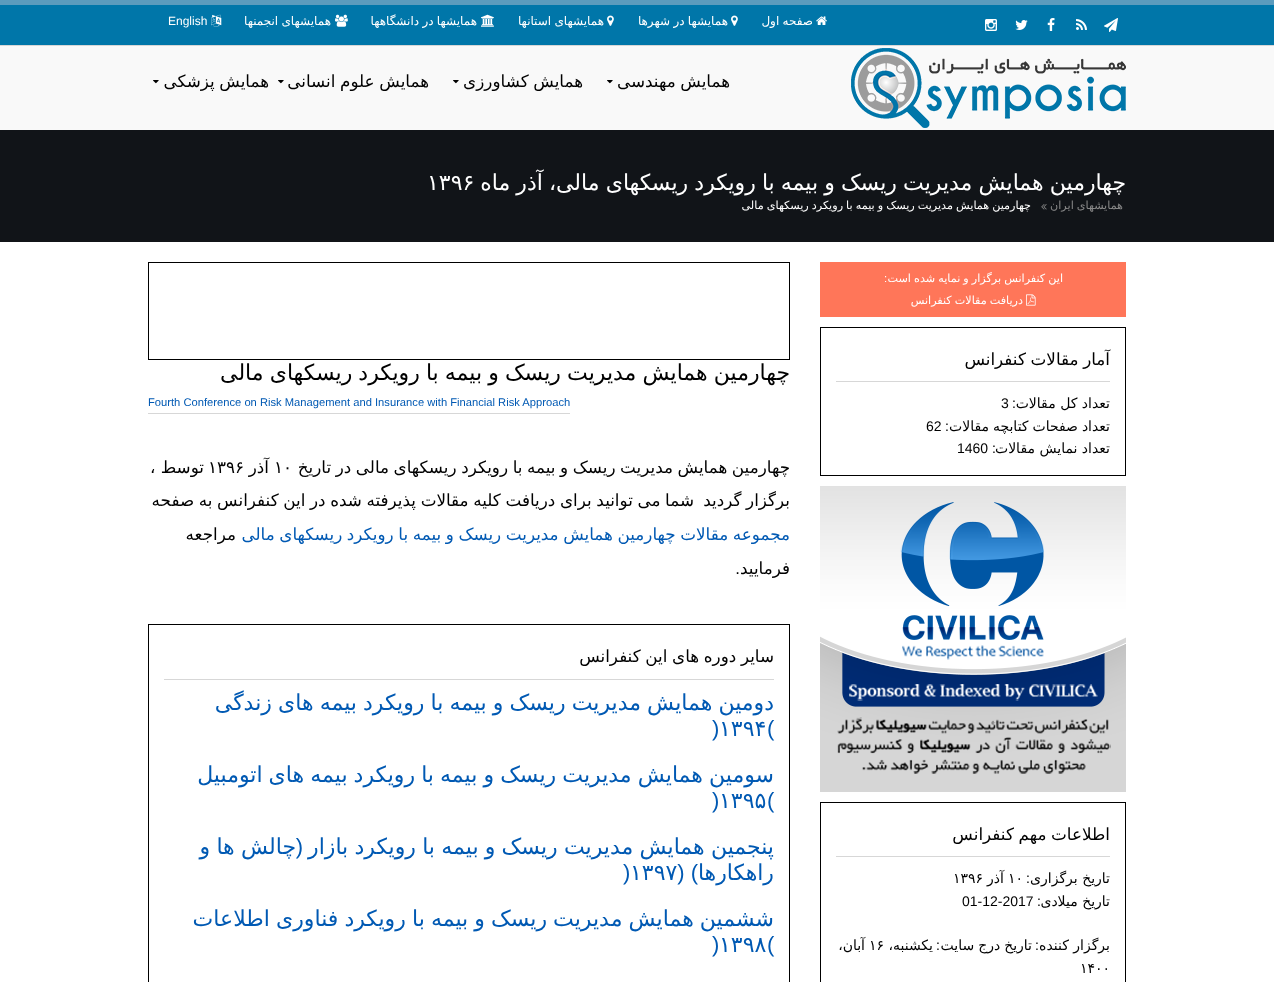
<svg xmlns="http://www.w3.org/2000/svg" width="1274" height="982" viewBox="0 0 1274 982">
  <style>
    .t1 { font: 12px DejaVu Sans; direction: rtl; fill: #fff; }
    .t2 { font: 12px Liberation Sans; fill: #fff; }
    .t3 { font: 16.8px DejaVu Sans; direction: rtl; fill: #000; }
    .t4 { font: 22px DejaVu Sans; direction: rtl; fill: #fff; }
    .t5 { font: 22px DejaVu Sans; fill: #fff; }
    .t6 { font: 11.2px DejaVu Sans; direction: rtl; fill: #888; }
    .t7 { font: 11.2px DejaVu Sans; direction: rtl; fill: #fff; }
    .t8 { font: 11.2px Liberation Sans; direction: rtl; fill: #fff; }
    .t9 { font: 14px DejaVu Sans; direction: rtl; fill: #000; }
    .t10 { font: 14px Liberation Sans; direction: rtl; fill: #000; }
    .t11 { font: 14px Liberation Sans; fill: #000; }
    .t12 { font: 14px DejaVu Sans; fill: #000; }
    .t13 { font: 22px DejaVu Sans; direction: rtl; fill: #000; }
    .t14 { font: 11.2px Liberation Sans; fill: #0059b3; }
    .t15 { font: 16.8px DejaVu Sans; fill: #000; }
    .t16 { font: 16.8px DejaVu Sans; direction: rtl; fill: #0059b3; }
    .t17 { font: 16.8px Liberation Sans; direction: rtl; fill: #000; }
    .t18 { font: 22px DejaVu Sans; direction: rtl; fill: #0059b3; }
    .t19 { font: 22px Liberation Sans; fill: #0059b3; }
    .t20 { font: 22px DejaVu Sans; fill: #0059b3; }
    .t21 { font: 22px Liberation Sans; direction: rtl; fill: #0059b3; }
  </style>
  <rect width="100%" height="100%" fill="#0076a9"/>
  <rect x="0" y="0" width="1274" height="5" fill="#5b9bbd"/>
  <image x="1104" y="18" width="14" height="14" href="images/1.png"/>
  <image x="1076" y="19" width="11" height="11" href="images/2.png"/>
  <image x="1047" y="18" width="8" height="13" href="images/3.png"/>
  <image x="1015" y="20" width="13" height="10" href="images/4.png"/>
  <image x="985" y="19" width="12" height="12" href="images/5.png"/>
  <image x="816" y="16" width="11" height="9" href="images/6.png"/>
  <text x="813" y="25" word-spacing="-0.5" class="t1">صفحه اول</text>
  <image x="731" y="15" width="7" height="11" href="images/7.png"/>
  <text x="728" y="25" word-spacing="-0.5" class="t1">همایشها در شهرها</text>
  <image x="607" y="15" width="7" height="11" href="images/7.png"/>
  <text x="604" y="25" word-spacing="-0.5" class="t1">همایشهای استانها</text>
  <image x="481" y="14" width="13" height="13" href="images/8.png"/>
  <text x="477" y="25" word-spacing="-0.5" class="t1">همایشها در دانشگاهها</text>
  <image x="335" y="14" width="13" height="13" href="images/9.png"/>
  <text x="331" y="25" word-spacing="-0.5" class="t1">همایشهای انجمنها</text>
  <image x="211" y="14" width="11" height="13" href="images/10.png"/>
  <text x="168" y="25" class="t2">English</text>
  <rect x="0" y="46" width="1274" height="84" fill="#f9f9f9"/>
  <rect x="0" y="45" width="1274" height="1" fill="#d7d7d7"/>
  <image x="851" y="48" width="275" height="80" href="images/11.png"/>
  <text x="730" y="87" word-spacing="-0.7" class="t3">همایش مهندسی</text>
  <image x="607" y="80" width="6" height="4" href="images/12.png"/>
  <text x="583" y="87" word-spacing="-0.7" class="t3">همایش کشاورزی</text>
  <image x="453" y="80" width="6" height="4" href="images/12.png"/>
  <text x="429" y="87" word-spacing="-0.7" class="t3">همایش علوم انسانی</text>
  <image x="278" y="80" width="6" height="4" href="images/12.png"/>
  <text x="269" y="87" word-spacing="-0.7" class="t3">همایش پزشکی</text>
  <image x="153" y="80" width="6" height="4" href="images/12.png"/>
  <rect x="0" y="130" width="1274" height="112" fill="#111418"/>
  <text x="1126" y="190" word-spacing="-0.9" class="t4">چهارمین همایش مدیریت ریسک و بیمه با رویکرد ریسکهای مالی، آذر ماه</text>
  <text x="427" y="190" class="t5">۱۳۹۶</text>
  <text x="1123" y="209" word-spacing="-0.5" class="t6">همایشهای ایران</text>
  <image x="1041" y="204" width="6" height="6" href="images/13.png"/>
  <text x="1031" y="209" word-spacing="-0.5" class="t7">چهارمین همایش مدیریت ریسک و بیمه با رویکرد ریسکهای مالی</text>
  <rect x="0" y="242" width="1274" height="740" fill="#fff"/>
  <rect x="820" y="262" width="306" height="55" fill="#ff7659"/>
  <text x="1063" y="282" word-spacing="-0.5" class="t7">این کنفرانس برگزار و نمایه شده است</text>
  <text x="887" y="282" class="t8">:</text>
  <image x="1026" y="294" width="10" height="12" href="images/14.png"/>
  <text x="1023" y="304" word-spacing="-0.5" class="t7">دریافت مقالات کنفرانس</text>
  <rect x="820.5" y="327.5" width="305" height="148" fill="none" stroke="#000"/>
  <text x="1110" y="365" word-spacing="-0.7" class="t3">آمار مقالات کنفرانس</text>
  <rect x="836" y="381" width="274" height="1" fill="#d7d7d7"/>
  <text x="1110" y="408" class="t9">تعداد کل مقالات</text>
  <text x="1016" y="408" class="t10">:</text>
  <text x="1001" y="408" class="t11">3</text>
  <text x="1110" y="431" word-spacing="-0.5" class="t9">تعداد صفحات کتابچه مقالات</text>
  <text x="949" y="431" class="t10">:</text>
  <text x="926" y="431" class="t11">62</text>
  <text x="1110" y="453" class="t9">تعداد نمایش مقالات</text>
  <text x="996" y="453" class="t10">:</text>
  <text x="957" y="453" class="t11">1460</text>
  <image x="820" y="486" width="306" height="306" href="images/15.png"/>
  <rect x="820.5" y="802.5" width="305" height="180" fill="none" stroke="#000"/>
  <text x="1110" y="840" word-spacing="-0.7" class="t3">اطلاعات مهم کنفرانس</text>
  <rect x="836" y="856" width="274" height="1" fill="#d7d7d7"/>
  <text x="1110" y="883" class="t9">تاریخ برگزاری</text>
  <text x="1030" y="883" class="t10">:</text>
  <text x="1008" y="883" class="t12">۱۰</text>
  <text x="1004" y="883" class="t9">آذر</text>
  <text x="953" y="883" class="t12">۱۳۹۶</text>
  <text x="1110" y="906" class="t9">تاریخ میلادی</text>
  <text x="1041" y="906" class="t10">:</text>
  <text x="962" y="906" class="t11">01-12-2017</text>
  <text x="1110" y="950" class="t9">برگزار کننده</text>
  <text x="1039" y="950" class="t10">:</text>
  <text x="1032" y="950" word-spacing="-0.5" class="t9">تاریخ درج سایت</text>
  <text x="940" y="950" class="t10">:</text>
  <text x="933" y="950" class="t9">یکشنبه،</text>
  <text x="869" y="950" class="t12">۱۶</text>
  <text x="865" y="950" class="t9">آبان،</text>
  <text x="1080" y="973" class="t12">۱۴۰۰</text>
  <rect x="148.5" y="262.5" width="641" height="97" fill="none" stroke="#000"/>
  <text x="790" y="380" word-spacing="-0.9" class="t13">چهارمین همایش مدیریت ریسک و بیمه با رویکرد ریسکهای مالی</text>
  <text x="148" y="406" class="t14">Fourth Conference on Risk Management and Insurance with Financial Risk Approach</text>
  <rect x="148" y="413" width="422" height="1" fill="#d7d7d7"/>
  <text x="790" y="473" word-spacing="-0.75" class="t3">چهارمین همایش مدیریت ریسک و بیمه با رویکرد ریسکهای مالی در تاریخ</text>
  <text x="274" y="473" class="t15">۱۰</text>
  <text x="269" y="473" class="t3">آذر</text>
  <text x="208" y="473" class="t15">۱۳۹۶</text>
  <text x="204" y="473" class="t3">توسط ،</text>
  <text x="790" y="506" word-spacing="-0.7" class="t3">برگزار گردید</text>
  <text x="694" y="506" word-spacing="-0.7" class="t3">شما می توانید برای دریافت کلیه مقالات پذیرفته شده در این کنفرانس به صفحه</text>
  <text x="790" y="540" word-spacing="-0.75" class="t16">مجموعه مقالات چهارمین همایش مدیریت ریسک و بیمه با رویکرد ریسکهای مالی</text>
  <text x="236" y="540" class="t3">مراجعه</text>
  <text x="790" y="574" class="t3">فرمایید</text>
  <text x="740" y="574" class="t17">.</text>
  <rect x="148.5" y="624.5" width="641" height="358" fill="none" stroke="#000"/>
  <text x="774" y="662" word-spacing="-0.7" class="t3">سایر دوره های این کنفرانس</text>
  <rect x="164" y="679" width="610" height="1" fill="#d7d7d7"/>
  <text x="774" y="710" word-spacing="-0.9" class="t18">دومین همایش مدیریت ریسک و بیمه با رویکرد بیمه های زندگی</text>
  <text x="767" y="736" class="t19">(</text>
  <text x="719" y="736" class="t20">۱۳۹۴</text>
  <text x="712" y="736" class="t19">)</text>
  <text x="774" y="782" word-spacing="-0.9" class="t18">سومین همایش مدیریت ریسک و بیمه با رویکرد بیمه های اتومبیل</text>
  <text x="767" y="808" class="t19">(</text>
  <text x="719" y="808" class="t20">۱۳۹۵</text>
  <text x="712" y="808" class="t19">)</text>
  <text x="774" y="854" word-spacing="-0.75" class="t18">پنجمین همایش مدیریت ریسک و بیمه با رویکرد بازار</text>
  <text x="303" y="854" class="t21">(</text>
  <text x="296" y="854" word-spacing="-0.75" class="t18">چالش ها و</text>
  <text x="774" y="880" class="t18">راهکارها</text>
  <text x="698" y="880" class="t21">) (</text>
  <text x="630" y="880" class="t20">۱۳۹۷</text>
  <text x="623" y="880" class="t19">)</text>
  <text x="774" y="926" word-spacing="-0.9" class="t18">ششمین همایش مدیریت ریسک و بیمه با رویکرد فناوری اطلاعات</text>
  <text x="767" y="952" class="t19">(</text>
  <text x="719" y="952" class="t20">۱۳۹۸</text>
  <text x="712" y="952" class="t19">)</text>
</svg>
